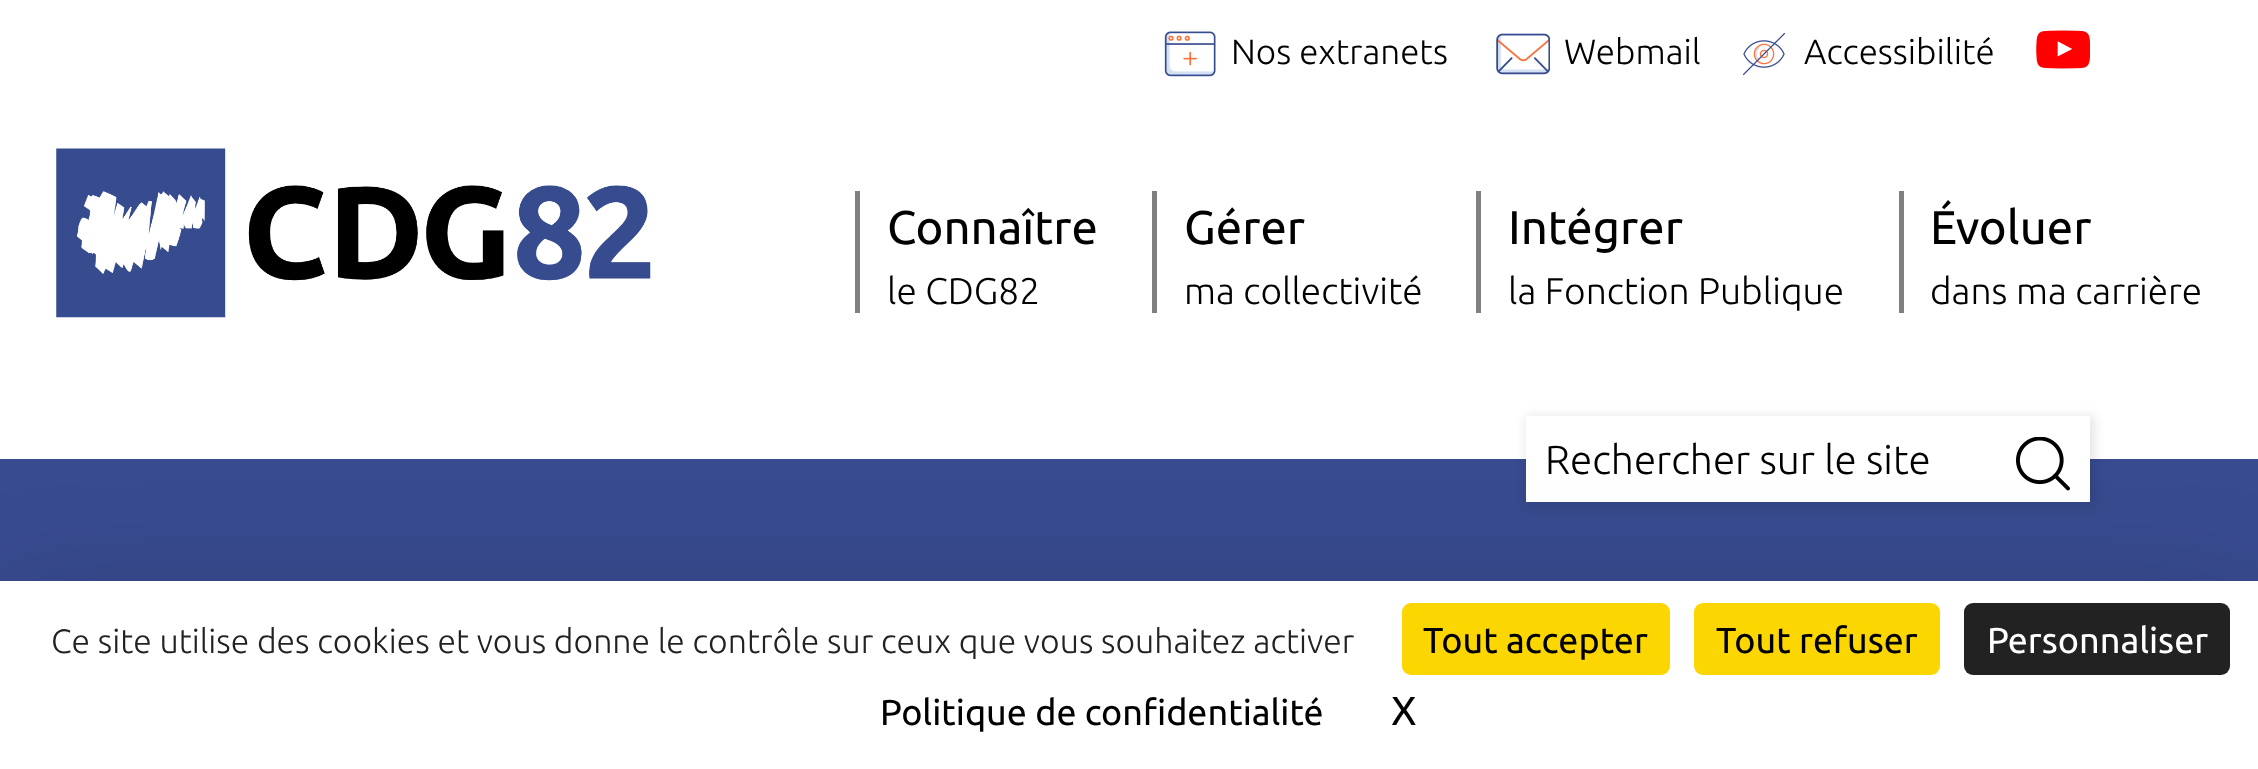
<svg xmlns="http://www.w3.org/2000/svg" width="2258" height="769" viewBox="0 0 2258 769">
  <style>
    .t1 { font: 300 35px Ubuntu; fill: #000; }
    .t2 { font: 47.25px Ubuntu; fill: #000; }
    .t3 { font: 300 37.1px Ubuntu; fill: #000; }
    .t4 { font: 300 40.5px Ubuntu; fill: #000; }
    .t5 { font: 300 33.75px Ubuntu; fill: #222; }
    .t6 { font: 36px Ubuntu; fill: #000; }
    .t7 { font: 36px Ubuntu; fill: #fff; }
    .t8 { font: 40.5px Ubuntu; fill: #000; }
  </style>
  <defs>
    <clipPath id="clip1"><rect x="29" y="621" width="1348" height="38"/></clipPath>
  </defs>
  <rect width="100%" height="100%" fill="#fff"/>
  <image x="1164" y="31" width="52" height="46" href="images/1.png"/>
  <text x="1231" y="64" class="t1">Nos extranets</text>
  <image x="1496" y="33" width="54" height="42" href="images/2.png"/>
  <text x="1564" y="64" class="t1">Webmail</text>
  <image x="1742" y="33" width="44" height="43" href="images/3.png"/>
  <text x="1804" y="64" class="t1">Accessibilité</text>
  <image x="2036" y="30" width="54" height="39" href="images/4.png"/>
  <image x="56" y="148" width="595" height="170" href="images/5.png"/>
  <rect x="855" y="191" width="5" height="122" fill="#808080"/>
  <text x="887" y="244" class="t2">Connaître</text>
  <text x="887" y="304" class="t3">le CDG82</text>
  <rect x="1152" y="191" width="5" height="122" fill="#808080"/>
  <text x="1184" y="244" class="t2">Gérer</text>
  <text x="1184" y="304" class="t3">ma collectivité</text>
  <rect x="1476" y="191" width="5" height="122" fill="#808080"/>
  <text x="1508" y="244" class="t2">Intégrer</text>
  <text x="1508" y="304" class="t3">la Fonction Publique</text>
  <rect x="1899" y="191" width="5" height="122" fill="#808080"/>
  <text x="1930" y="244" class="t2">Évoluer</text>
  <text x="1930" y="304" class="t3">dans ma carrière</text>
  <rect x="0" y="459" width="2258" height="122" fill="#384b8f"/>
  <rect x="1526" y="416" width="569" height="90" fill="#0000001a" filter="blur(5.5px)"/>
  <rect x="1526" y="416" width="564" height="86" fill="#fff"/>
  <image x="2016" y="437" width="54" height="54" href="images/6.png"/>
  <text x="1545" y="474" class="t4">Rechercher sur le site</text>
  <rect x="0" y="626" width="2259" height="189" fill="#00000040" filter="blur(67.5px)"/>
  <rect x="0" y="581" width="2258" height="188" fill="#fff"/>
  <g clip-path="url(#clip1)">
    <text x="51" y="653" class="t5">Ce site utilise des cookies et vous donne le contrôle sur ceux que vous souhaitez activer</text>
  </g>
  <rect x="1402" y="603" width="268" height="72" rx="9" fill="#fbd600"/>
  <text x="1423" y="653" class="t6">Tout accepter</text>
  <rect x="1694" y="603" width="246" height="72" rx="9" fill="#fbd600"/>
  <text x="1716" y="653" class="t6">Tout refuser</text>
  <rect x="1964" y="603" width="266" height="72" rx="9" fill="#222"/>
  <text x="1987" y="653" class="t7">Personnaliser</text>
  <text x="880" y="725" class="t6">Politique de confidentialité</text>
  <text x="1391" y="725" class="t8">X</text>
</svg>
